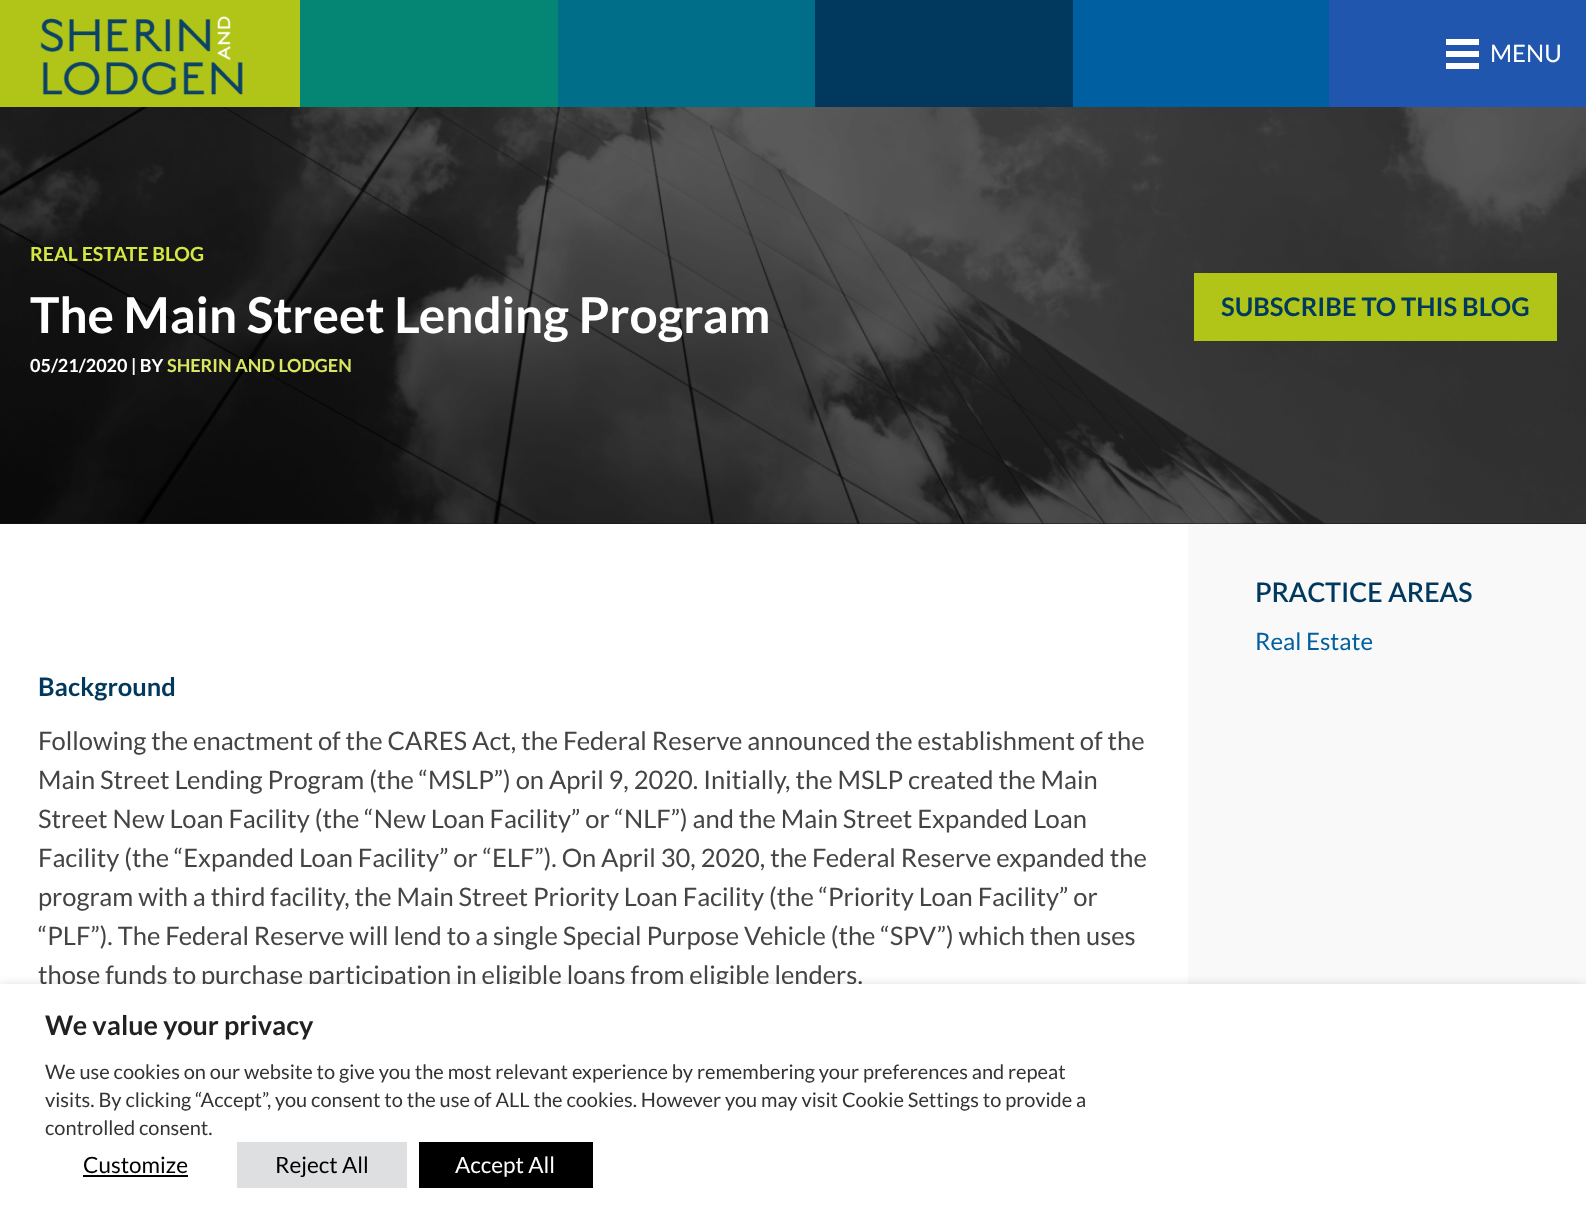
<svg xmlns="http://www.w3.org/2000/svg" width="1586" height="1210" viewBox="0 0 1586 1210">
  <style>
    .t1 { font: 24px Lato; fill: #fff; }
    .t2 { font: bold 19.5px Lato; fill: #d5e842; }
    .t3 { font: bold 49.5px Lato; fill: #fff; }
    .t4 { font: bold 18px Lato; fill: #fff; }
    .t5 { font: bold 18px Lato; fill: #d8e661; }
    .t6 { font: bold 25.5px Lato; fill: #01395e; }
    .t7 { font: 600 27px Lato; fill: #01395e; }
    .t8 { font: 24px Lato; fill: #005f9f; }
    .t9 { font: 25.5px Lato; fill: #444; }
    .t10 { font: bold 27px Lato; fill: #212121; }
    .t11 { font: 20px Lato; fill: #333; }
    .t12 { font: 22.5px Lato; fill: #000; }
    .t13 { font: 22.5px Lato; fill: #fff; }
  </style>
  <rect width="100%" height="100%" fill="#fff"/>
  <rect x="0" y="0" width="300" height="107" fill="#b1c519"/>
  <image x="40" y="16" width="203" height="80" href="images/1.png"/>
  <rect x="300" y="0" width="258" height="107" fill="#058574"/>
  <rect x="558" y="0" width="257" height="107" fill="#006e89"/>
  <rect x="815" y="0" width="258" height="107" fill="#01395e"/>
  <rect x="1073" y="0" width="256" height="107" fill="#005fa1"/>
  <rect x="1329" y="0" width="257" height="107" fill="#2056ad"/>
  <image x="1446" y="39" width="33" height="30" href="images/2.png"/>
  <text x="1490" y="62" class="t1">MENU</text>
  <rect x="0" y="523" width="1586" height="1" fill="#171717"/>
  <image x="0" y="107" width="1586" height="417" href="images/3.png"/>
  <text x="30" y="261" class="t2">REAL ESTATE BLOG</text>
  <text x="30" y="333" class="t3">The Main Street Lending Program</text>
  <text x="30" y="372" class="t4">05/21/2020 | BY</text>
  <text x="167" y="372" class="t5">SHERIN AND LODGEN</text>
  <rect x="1194" y="273" width="363" height="68" fill="#b1c518"/>
  <text x="1221" y="316" class="t6">SUBSCRIBE TO THIS BLOG</text>
  <rect x="1188" y="524" width="398" height="460" fill="#f9f9f9"/>
  <text x="1255" y="602" class="t7">PRACTICE AREAS</text>
  <text x="1255" y="650" class="t8">Real Estate</text>
  <text x="38" y="696" class="t6">Background</text>
  <text x="38" y="750" class="t9">Following the enactment of the CARES Act, the Federal Reserve announced the establishment of the</text>
  <text x="38" y="789" class="t9">Main Street Lending Program (the “MSLP”) on April 9, 2020. Initially, the MSLP created the Main</text>
  <text x="38" y="828" class="t9">Street New Loan Facility (the “New Loan Facility” or “NLF”) and the Main Street Expanded Loan</text>
  <text x="38" y="867" class="t9">Facility (the “Expanded Loan Facility” or “ELF”). On April 30, 2020, the Federal Reserve expanded the</text>
  <text x="38" y="906" class="t9">program with a third facility, the Main Street Priority Loan Facility (the “Priority Loan Facility” or</text>
  <text x="38" y="945" class="t9">“PLF”). The Federal Reserve will lend to a single Special Purpose Vehicle (the “SPV”) which then uses</text>
  <text x="38" y="984" class="t9">those funds to purchase participation in eligible loans from eligible lenders.</text>
  <rect x="0" y="992" width="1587" height="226" fill="#00000080" filter="blur(7.5px)"/>
  <rect x="0" y="984" width="1586" height="226" fill="#fff"/>
  <text x="45" y="1035" class="t10">We value your privacy</text>
  <text x="45" y="1079" class="t11">We use cookies on our website to give you the most relevant experience by remembering your preferences and repeat</text>
  <text x="45" y="1107" class="t11">visits. By clicking “Accept”, you consent to the use of ALL the cookies. However you may visit Cookie Settings to provide a</text>
  <text x="45" y="1135" class="t11">controlled consent.</text>
  <text x="83" y="1173" class="t12">Customize</text>
  <rect x="83" y="1175" width="105" height="2" fill="#000"/>
  <rect x="237" y="1142" width="170" height="46" fill="#dedfe0"/>
  <text x="275" y="1173" class="t12">Reject All</text>
  <rect x="419" y="1142" width="174" height="46" fill="#000"/>
  <text x="455" y="1173" class="t13">Accept All</text>
</svg>
